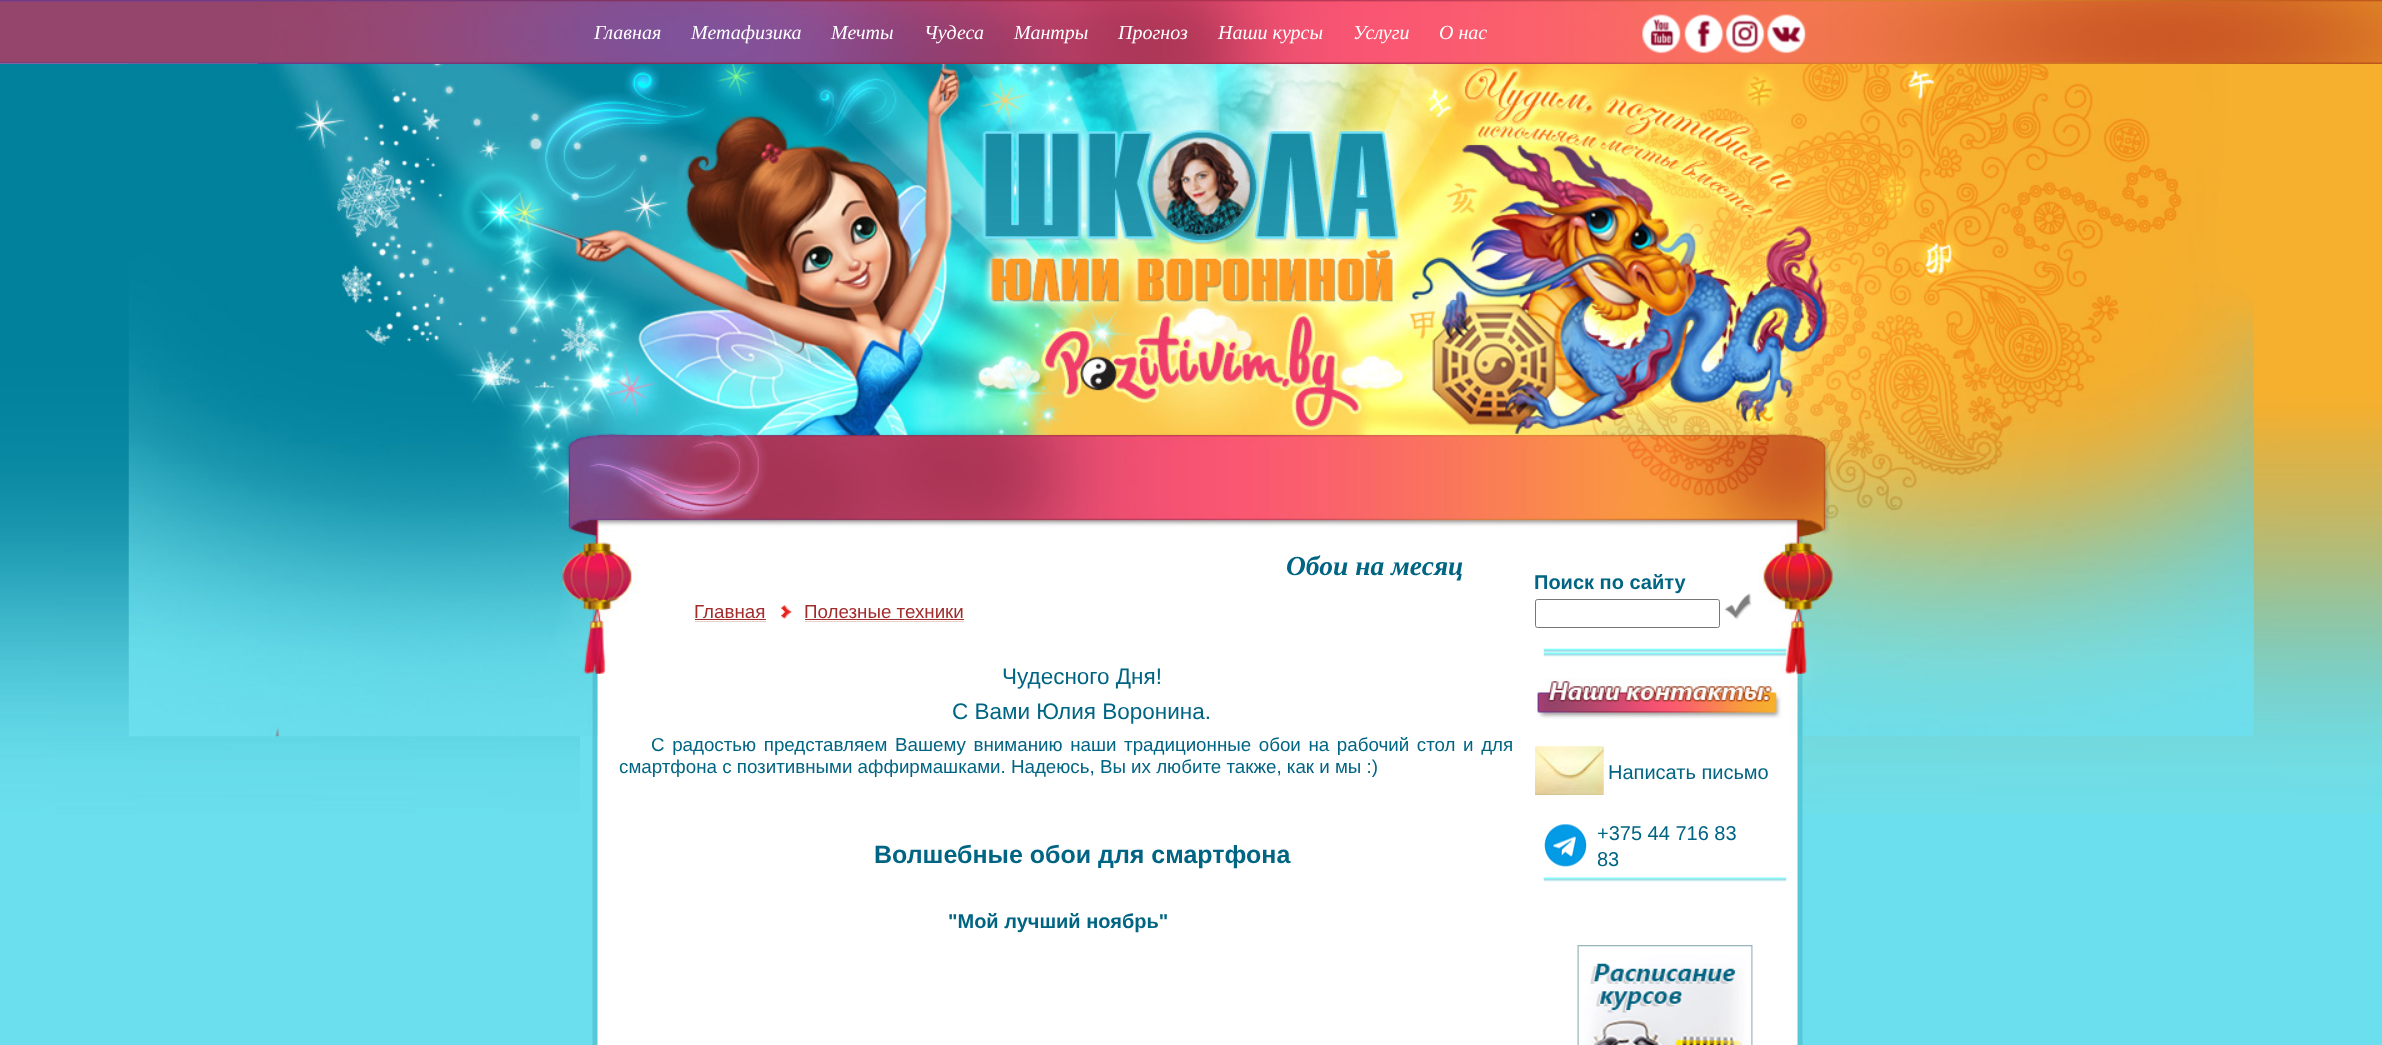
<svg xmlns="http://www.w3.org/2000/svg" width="2382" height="1045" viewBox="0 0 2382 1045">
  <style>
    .t1 { font: italic 20px Liberation Serif; fill: #fff; }
    .t2 { font: italic bold 27.5px Liberation Serif; fill: #006483; }
    .t3 { font: 18.75px Liberation Sans; fill: #a12d2d; }
    .t4 { font: 22.5px Liberation Sans; fill: #006483; }
    .t5 { font: 18.75px Liberation Sans; fill: #006483; }
    .t6 { font: bold 25px Liberation Sans; fill: #006483; }
    .t7 { font: bold 20px Liberation Sans; fill: #006483; }
    .t8 { font: 20px Liberation Sans; fill: #006483; }
  </style>
  <rect width="100%" height="100%" fill="#6bdfed"/>
  <image x="0" y="63" width="2382" height="751" href="images/7.png"/>
  <image x="580" y="736" width="1223" height="309" href="images/8.png"/>
  <image x="128" y="63" width="2126" height="674" href="images/9.png"/>
  <image x="0" y="0" width="258" height="64" href="images/1.png"/>
  <image x="257" y="0" width="2125" height="64" href="images/2.png"/>
  <text x="594" y="39" class="t1">Главная</text>
  <text x="691" y="39" class="t1">Метафизика</text>
  <text x="831" y="39" class="t1">Мечты</text>
  <text x="924" y="39" class="t1">Чудеса</text>
  <text x="1014" y="39" class="t1">Мантры</text>
  <text x="1118" y="39" class="t1">Прогноз</text>
  <text x="1218" y="39" class="t1">Наши курсы</text>
  <text x="1353" y="39" class="t1">Услуги</text>
  <text x="1439" y="39" class="t1">О нас</text>
  <image x="1642" y="14" width="39" height="40" href="images/3.png"/>
  <image x="1684" y="14" width="40" height="40" href="images/4.png"/>
  <image x="1725" y="14" width="40" height="40" href="images/5.png"/>
  <image x="1767" y="14" width="39" height="40" href="images/6.png"/>
  <text x="1286" y="575" class="t2">Обои на месяц</text>
  <text x="694" y="618" class="t3">Главная</text>
  <rect x="695" y="621" width="71" height="1" fill="#e7d1cd"/>
  <rect x="695" y="619" width="71" height="1" fill="#a12d2d"/>
  <image x="781" y="605" width="11" height="14" href="images/10.png"/>
  <text x="804" y="618" class="t3">Полезные техники</text>
  <rect x="805" y="621" width="159" height="1" fill="#e7d1cd"/>
  <rect x="805" y="619" width="159" height="1" fill="#a12d2d"/>
  <text x="1002" y="684" class="t4">Чудесного Дня!</text>
  <text x="952" y="719" class="t4">С Вами Юлия Воронина.</text>
  <text x="651" y="751" word-spacing="2.4" class="t5">С радостью представляем Вашему вниманию наши традиционные обои на рабочий стол и для</text>
  <text x="619" y="773" class="t5">смартфона с позитивными аффирмашками. Надеюсь, Вы их любите также, как и мы :)</text>
  <text x="874" y="863" class="t6">Волшебные обои для смартфона</text>
  <text x="948" y="928" class="t7">"Мой лучший ноябрь"</text>
  <text x="1534" y="589" class="t7">Поиск по сайту</text>
  <rect x="1535.5" y="599.5" width="184" height="28" rx="2" fill="none" stroke="#767676"/>
  <image x="1725" y="593" width="27" height="27" href="images/11.png"/>
  <image x="1543" y="648" width="244" height="5" href="images/12.png"/>
  <image x="1543" y="652" width="244" height="5" href="images/13.png"/>
  <image x="1535" y="677" width="247" height="42" href="images/14.png"/>
  <image x="1535" y="746" width="69" height="49" href="images/15.png"/>
  <text x="1608" y="779" class="t8">Написать письмо</text>
  <image x="1544" y="823" width="43" height="44" href="images/16.png"/>
  <text x="1597" y="840" class="t8">+375 44 716 83</text>
  <text x="1597" y="866" class="t8">83</text>
  <image x="1543" y="877" width="244" height="5" href="images/17.png"/>
  <image x="1577" y="945" width="176" height="100" href="images/18.png"/>
</svg>
